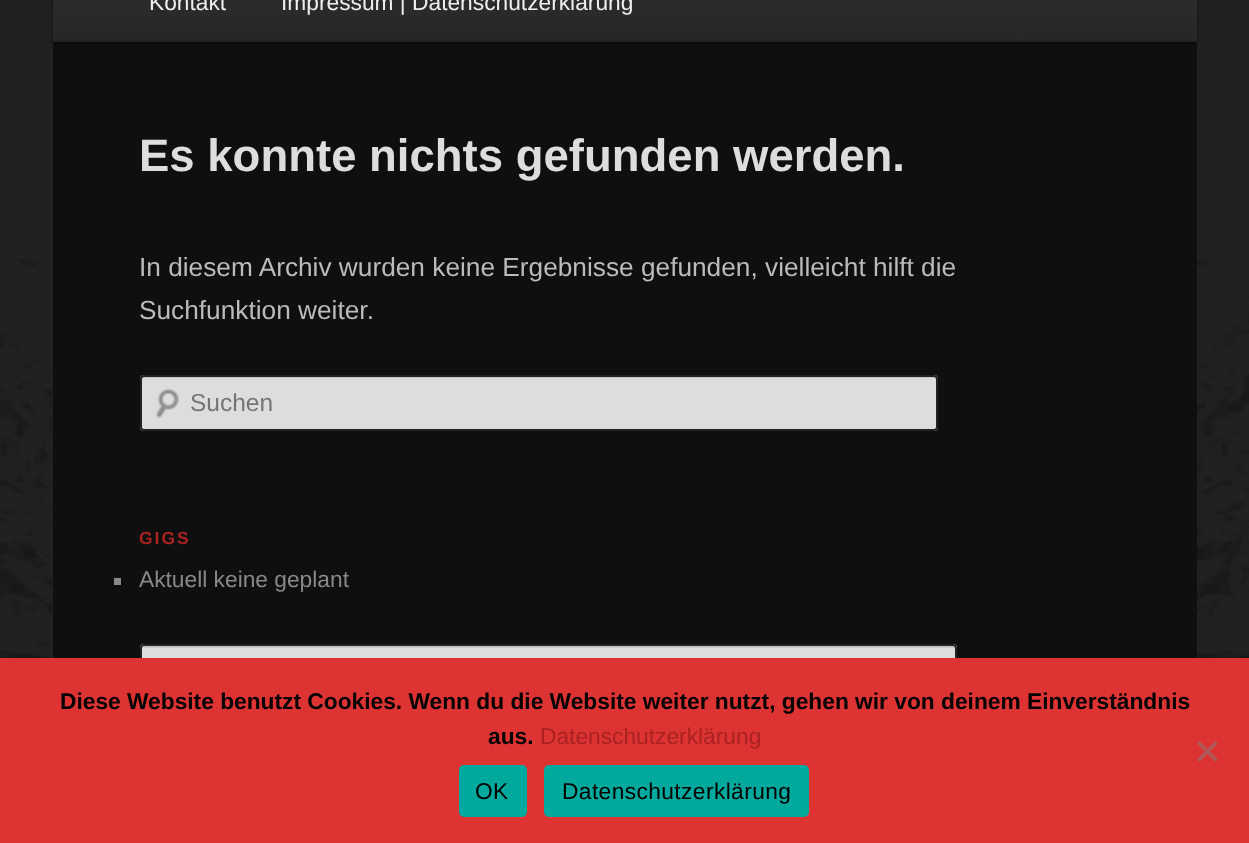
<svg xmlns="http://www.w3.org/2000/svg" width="1249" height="843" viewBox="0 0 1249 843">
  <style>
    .t1 { font: 22.75px Liberation Sans; fill: #eee; }
    .t2 { font: bold 45.5px Liberation Sans; fill: #ddd; }
    .t3 { font: 26.25px Liberation Sans; fill: #bbb; }
    .t4 { font: 24.5px Liberation Sans; fill: #757575; }
    .t5 { font: bold 17.5px Liberation Sans; letter-spacing: 2px; fill: #a22; }
    .t6 { font: 22.75px Liberation Sans; fill: #888; }
    .t7 { font: bold 22.75px Liberation Sans; fill: #000; }
    .t8 { font: 22.75px Liberation Sans; fill: #a22; }
    .t9 { font: 22.75px Liberation Sans; letter-spacing: 0.4px; fill: #000; }
  </style>
  <defs>
    <linearGradient id="g1" gradientUnits="userSpaceOnUse" x1="625" y1="-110" x2="625" y2="40"><stop offset="0" stop-color="#383838"/><stop offset="1" stop-color="#272727"/></linearGradient>
  </defs>
  <rect width="100%" height="100%" fill="#212121"/>
  <image x="0" y="259" width="1249" height="399" href="images/1.png"/>
  <rect x="53" y="42" width="1144" height="616" fill="#0f0f0f"/>
  <rect x="53" y="-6" width="1144" height="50" fill="#00000066" filter="blur(2px)"/>
  <rect x="53" y="0" width="1144" height="40" fill="url(#g1)"/>
  <rect x="53" y="40" width="1144" height="2" fill="#222"/>
  <text x="149" y="10" class="t1">Kontakt</text>
  <text x="281" y="10" class="t1">Impressum | Datenschutzerklärung</text>
  <text x="139" y="171" class="t2">Es konnte nichts gefunden werden.</text>
  <text x="139" y="276" class="t3">In diesem Archiv wurden keine Ergebnisse gefunden, vielleicht hilft die</text>
  <text x="139" y="319" class="t3">Suchfunktion weiter.</text>
  <rect x="140" y="375" width="798" height="56" rx="4" fill="#ddd"/>
  <image x="155" y="388" width="24" height="31" href="images/2.png"/>
  <path d="M144 378H934C935 378 936 379 936 380V377L934 376H144L143 377C142 377 142 379 142 380C142 379 143 378 144 378Z" fill="#c7c7c7"/>
  <rect x="141" y="376" width="796" height="54" rx="3" fill="none" stroke="#222" stroke-width="2"/>
  <text x="190" y="411" class="t4">Suchen</text>
  <text x="139" y="544" class="t5">GIGS</text>
  <rect x="114" y="578" width="7" height="7" fill="#888"/>
  <text x="139" y="587" class="t6">Aktuell keine geplant</text>
  <rect x="140" y="644" width="817" height="56" rx="4" fill="#ddd"/>
  <path d="M144 648H954C955 648 956 648 956 649C956 648 956 646 954 646H144C142 646 142 648 142 649C142 648 143 648 144 648Z" fill="#c7c7c7"/>
  <rect x="141" y="645" width="815" height="54" rx="3" fill="none" stroke="#222" stroke-width="2"/>
  <rect x="0" y="658" width="1249" height="185" fill="#d33"/>
  <text x="60" y="709" class="t7">Diese Website benutzt Cookies. Wenn du die Website weiter nutzt, gehen wir von deinem Einverständnis</text>
  <text x="488" y="744" class="t7">aus.</text>
  <text x="540" y="744" class="t8">Datenschutzerklärung</text>
  <path d="M1215.5 741L1218 743.5L1199.5 762L1197 759.5Z" fill="#af5a5a"/>
  <path d="M1197 743.5L1199.5 741L1218 759.5L1215.5 762Z" fill="#af5a5a"/>
  <rect x="459" y="765" width="68" height="52" rx="5" fill="#00a99d"/>
  <text x="475" y="799" class="t9">OK</text>
  <rect x="544" y="765" width="265" height="52" rx="5" fill="#00a99d"/>
  <text x="562" y="799" class="t9">Datenschutzerklärung</text>
</svg>
